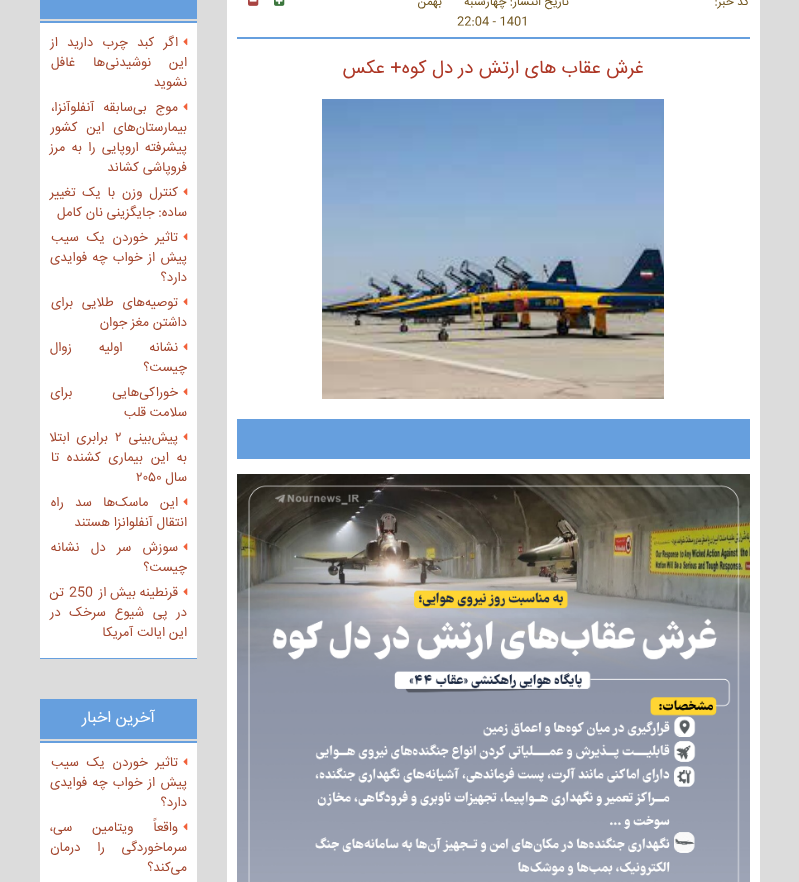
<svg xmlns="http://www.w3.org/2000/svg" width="799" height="882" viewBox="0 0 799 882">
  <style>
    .t1 { font: 12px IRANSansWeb; direction: rtl; fill: #6f541d; }
    .t2 { font: 12px IRANSansWeb; fill: #6f541d; }
    .t3 { font: 18.7px IRANSansWeb; direction: rtl; fill: #ad3726; }
    .t4 { font: 13.25px IRANSansWeb; direction: rtl; fill: #a4472f; }
    .t5 { font: 13.25px IRANSansWeb; fill: #a4472f; }
    .t6 { font: 16px IRANSansWeb; direction: rtl; fill: #fff; }
  </style>
  <rect width="100%" height="100%" fill="#dcdcdc"/>
  <rect x="227" y="0" width="533" height="882" fill="#fff"/>
  <rect x="237" y="37" width="513" height="2" fill="#669fde"/>
  <text x="749" y="5" class="t1">کد خبر:</text>
  <text x="569" y="5" class="t1">تاریخ انتشار: چهارشنبه</text>
  <text x="442" y="5" class="t1">بهمن</text>
  <text x="457" y="25" class="t2">22:04 - 1401</text>
  <image x="274" y="0" width="11" height="6" href="images/1.png"/>
  <image x="248" y="0" width="11" height="6" href="images/2.png"/>
  <text x="644" y="73" class="t3">غرش عقاب های ارتش در دل کوه+ عکس</text>
  <image x="322" y="99" width="342" height="300" href="images/3.png"/>
  <rect x="237" y="419" width="513" height="40" fill="#669fde"/>
  <image x="237" y="474" width="513" height="408" href="images/4.png"/>
  <rect x="40" y="0" width="157" height="19" fill="#669fde"/>
  <rect x="40" y="23" width="157" height="635" fill="#fff"/>
  <rect x="40" y="21" width="157" height="2" fill="#669fde"/>
  <rect x="40" y="658" width="157" height="1" fill="#669fde"/>
  <image x="183" y="38" width="5" height="8" href="images/5.png"/>
  <text x="178" y="46" word-spacing="5.5" class="t4">اگر کبد چرب دارید از</text>
  <text x="187" y="66" word-spacing="14" class="t4">این نوشیدنی‌ها غافل</text>
  <text x="187" y="86" class="t4">نشوید</text>
  <image x="183" y="103" width="5" height="8" href="images/5.png"/>
  <text x="178" y="111" word-spacing="5" class="t4">موج بی‌سابقه آنفلوآنزا،</text>
  <text x="187" y="131" word-spacing="5" class="t4">بیمارستان‌های این کشور</text>
  <text x="187" y="151" word-spacing="2.5" class="t4">پیشرفته اروپایی را به مرز</text>
  <text x="187" y="171" class="t4">فروپاشی کشاند</text>
  <image x="183" y="188" width="5" height="8" href="images/5.png"/>
  <text x="178" y="196" word-spacing="3" class="t4">کنترل وزن با یک تغییر</text>
  <text x="187" y="216" class="t4">ساده: جایگزینی نان کامل</text>
  <image x="183" y="233" width="5" height="8" href="images/5.png"/>
  <text x="178" y="241" word-spacing="4" class="t4">تاثیر خوردن یک سیب</text>
  <text x="187" y="261" word-spacing="1.5" class="t4">پیش از خواب چه فوایدی</text>
  <text x="187" y="281" class="t4">دارد؟</text>
  <image x="183" y="298" width="5" height="8" href="images/5.png"/>
  <text x="178" y="306" word-spacing="5" class="t4">توصیه‌های طلایی برای</text>
  <text x="187" y="326" class="t4">داشتن مغز جوان</text>
  <image x="183" y="343" width="5" height="8" href="images/5.png"/>
  <text x="178" y="351" word-spacing="23" class="t4">نشانه اولیه زوال</text>
  <text x="187" y="371" class="t4">چیست؟</text>
  <image x="183" y="388" width="5" height="8" href="images/5.png"/>
  <text x="178" y="396" word-spacing="36" class="t4">خوراکی‌هایی برای</text>
  <text x="187" y="416" class="t4">سلامت قلب</text>
  <image x="183" y="433" width="5" height="8" href="images/5.png"/>
  <text x="178" y="441" class="t4">پیش‌بینی</text>
  <text x="115" y="441" class="t5">۲</text>
  <text x="108" y="441" word-spacing="3" class="t4">برابری ابتلا</text>
  <text x="187" y="461" word-spacing="4" class="t4">به این بیماری کشنده تا</text>
  <text x="187" y="481" class="t4">سال</text>
  <text x="136" y="481" class="t5">۲۰۵۰</text>
  <image x="183" y="498" width="5" height="8" href="images/5.png"/>
  <text x="178" y="506" word-spacing="7.5" class="t4">این ماسک‌ها سد راه</text>
  <text x="187" y="526" class="t4">انتقال آنفلوانزا هستند</text>
  <image x="183" y="543" width="5" height="8" href="images/5.png"/>
  <text x="178" y="551" word-spacing="7.5" class="t4">سوزش سر دل نشانه</text>
  <text x="187" y="571" class="t4">چیست؟</text>
  <image x="183" y="588" width="5" height="8" href="images/5.png"/>
  <text x="178" y="596" class="t4">قرنطینه بیش از</text>
  <text x="69" y="596" class="t5">250</text>
  <text x="64" y="596" class="t4">تن</text>
  <text x="187" y="616" word-spacing="5" class="t4">در پی شیوع سرخک در</text>
  <text x="187" y="636" class="t4">این ایالت آمریکا</text>
  <rect x="40" y="699" width="157" height="40" fill="#669fde"/>
  <text x="155" y="722" class="t6">آخرین اخبار</text>
  <rect x="40" y="743" width="157" height="139" fill="#fff"/>
  <rect x="40" y="741" width="157" height="2" fill="#669fde"/>
  <image x="183" y="758" width="5" height="8" href="images/5.png"/>
  <text x="178" y="766" word-spacing="4" class="t4">تاثیر خوردن یک سیب</text>
  <text x="187" y="786" word-spacing="1.5" class="t4">پیش از خواب چه فوایدی</text>
  <text x="187" y="806" class="t4">دارد؟</text>
  <image x="183" y="823" width="5" height="8" href="images/5.png"/>
  <text x="178" y="831" word-spacing="16" class="t4">واقعاً ویتامین سی،</text>
  <text x="187" y="851" word-spacing="13" class="t4">سرماخوردگی را درمان</text>
  <text x="187" y="871" class="t4">می‌کند؟</text>
</svg>
